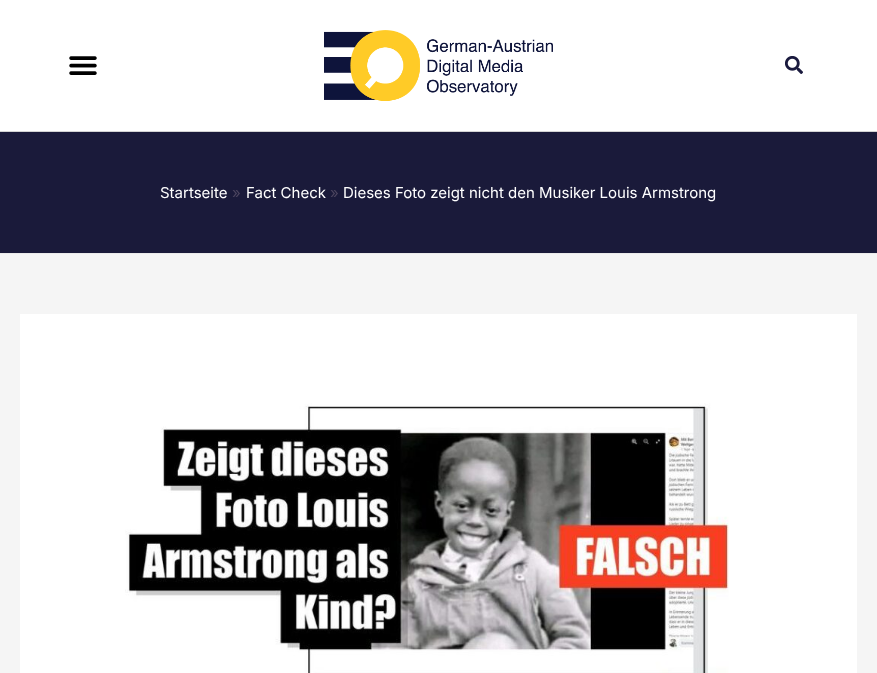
<svg xmlns="http://www.w3.org/2000/svg" width="877" height="673" viewBox="0 0 877 673">
  <style>
    .t1 { font: 15px Inter; fill: #fff; }
    .t2 { font: 15px Inter; fill: #4c455f; }
  </style>
  <rect width="100%" height="100%" fill="#f5f5f5"/>
  <rect x="0" y="0" width="877" height="131" fill="#fff"/>
  <rect x="0" y="131" width="877" height="1" fill="#d3d3d3"/>
  <image x="69" y="56" width="28" height="19" href="images/1.png"/>
  <image x="324" y="30" width="229" height="71" href="images/2.png"/>
  <image x="785" y="56" width="18" height="18" href="images/3.png"/>
  <rect x="0" y="132" width="877" height="121" fill="#1a1a3a"/>
  <rect x="0" y="253" width="877" height="1" fill="#eaeaea"/>
  <text x="160" y="198" class="t1">Startseite</text>
  <text x="232" y="198" class="t2">»</text>
  <text x="246" y="198" class="t1">Fact Check</text>
  <text x="330" y="198" class="t2">»</text>
  <text x="343" y="198" class="t1">Dieses Foto zeigt nicht den Musiker Louis Armstrong</text>
  <rect x="20" y="314" width="837" height="359" fill="#fff"/>
  <image x="125" y="403" width="604" height="270" href="images/4.png"/>
</svg>
